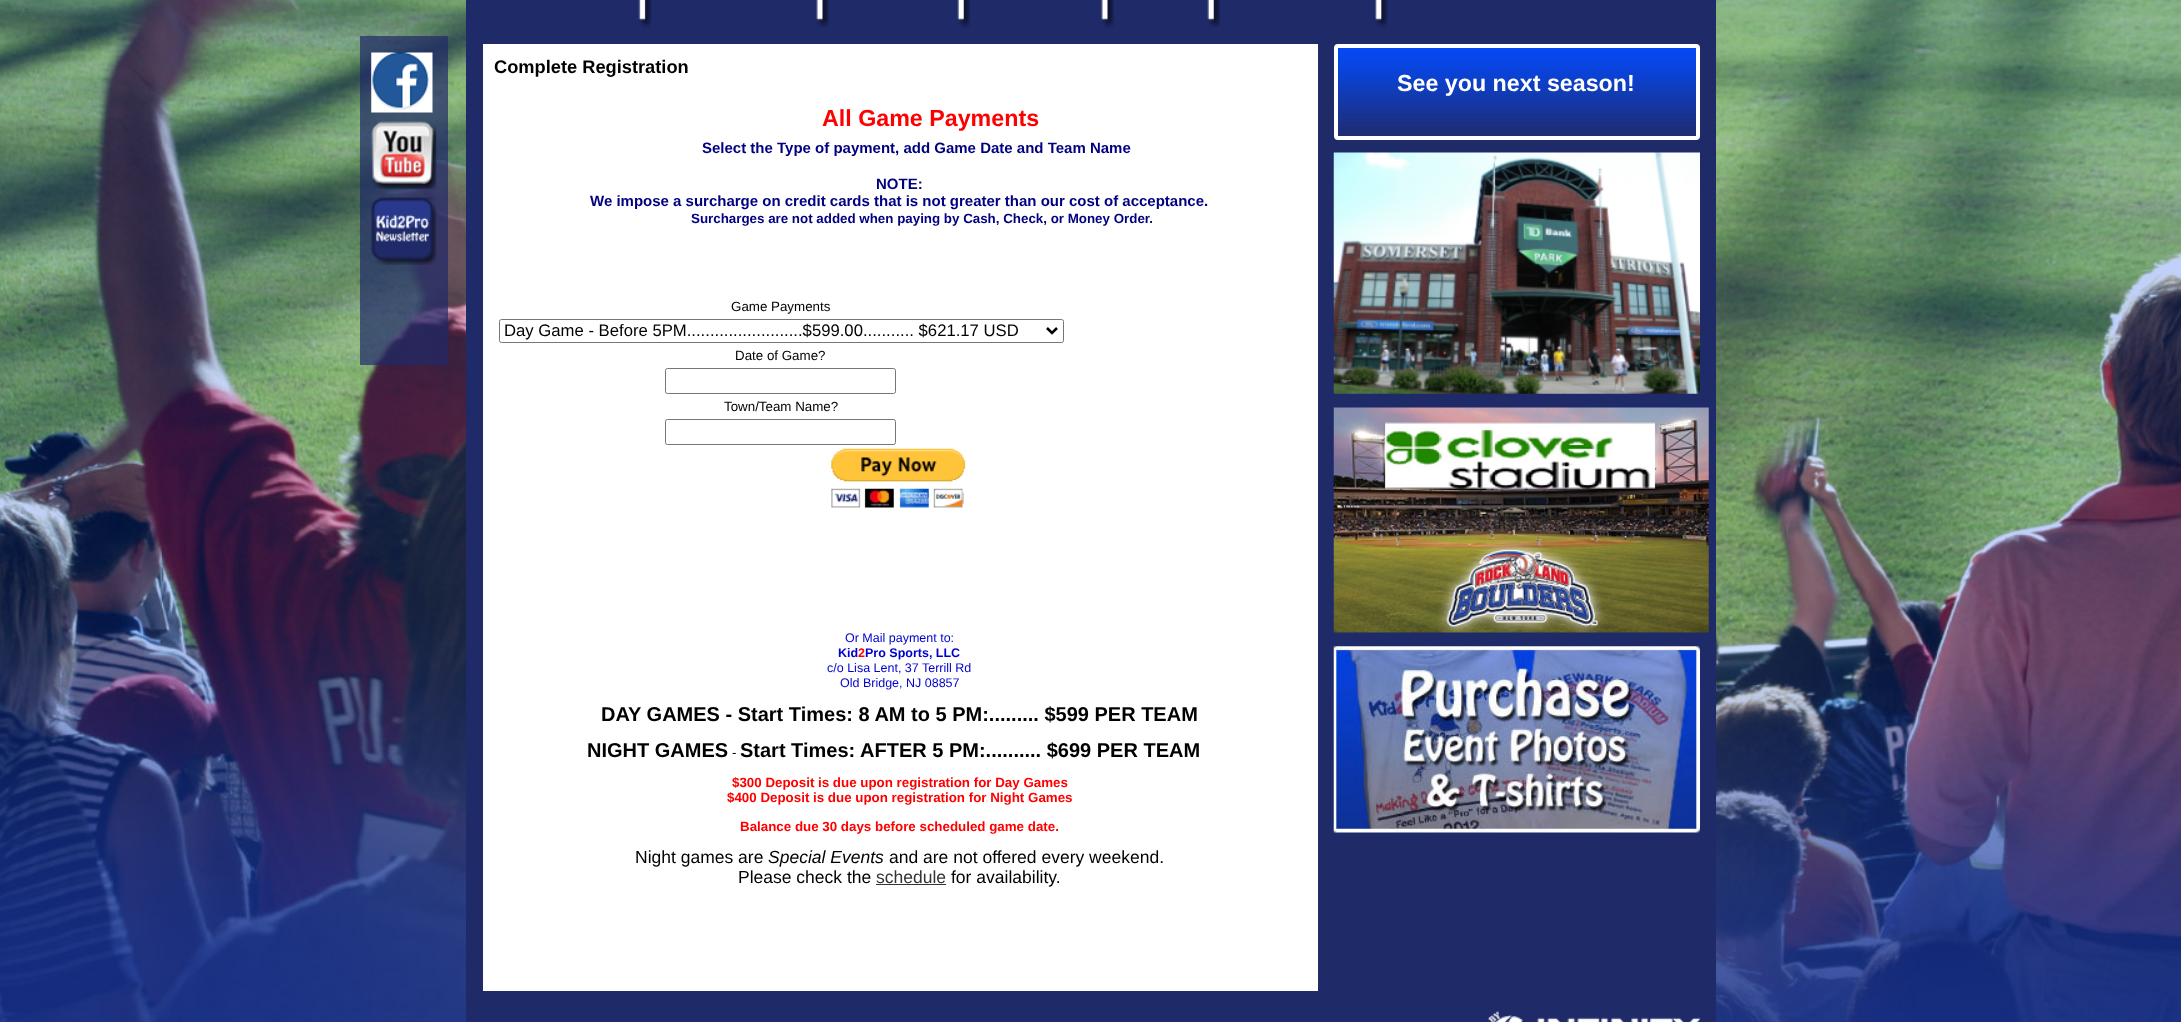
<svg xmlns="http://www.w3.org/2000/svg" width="2181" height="1022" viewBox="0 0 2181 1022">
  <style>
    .t1 { font: bold 18.25px Liberation Sans; fill: #000; }
    .t2 { font: bold 23.25px Liberation Sans; fill: #f00; }
    .t3 { font: bold 15px Liberation Sans; fill: #000080; }
    .t4 { font: bold 13.35px Liberation Sans; fill: #000080; }
    .t5 { font: 13.35px Liberation Sans; fill: #000; }
    .t6 { font: 16.7px Liberation Sans; fill: #000; }
    .t7 { font: 12.5px Liberation Sans; fill: #0000cd; }
    .t8 { font: bold 12.5px Liberation Sans; fill: #0000cd; }
    .t9 { font: bold 12.5px Liberation Sans; fill: #f00; }
    .t10 { font: bold 20px Liberation Sans; fill: #000; }
    .t11 { font: bold 13.35px Liberation Sans; fill: #f00; }
    .t12 { font: 17.5px Liberation Sans; fill: #000; }
    .t13 { font: italic 17.5px Liberation Sans; fill: #000; }
    .t14 { font: 17.5px Liberation Sans; fill: #333; }
    .t15 { font: bold 23.25px Liberation Sans; fill: #fff; }
  </style>
  <rect width="100%" height="100%" fill="#fff"/>
  <image x="0" y="0" width="2181" height="1022" href="images/1.png"/>
  <rect x="466" y="0" width="1250" height="1022" fill="#1f2a68"/>
  <image x="638" y="0" width="14" height="28" href="images/2.png"/>
  <image x="816" y="0" width="13" height="28" href="images/3.png"/>
  <image x="957" y="0" width="13" height="28" href="images/4.png"/>
  <image x="1101" y="0" width="13" height="28" href="images/3.png"/>
  <image x="1207" y="0" width="13" height="28" href="images/5.png"/>
  <image x="1375" y="0" width="13" height="28" href="images/6.png"/>
  <rect x="360" y="36" width="88" height="329" fill="#1f2968b3"/>
  <image x="371" y="52" width="62" height="61" href="images/7.png"/>
  <image x="371" y="121" width="66" height="68" href="images/8.png"/>
  <image x="371" y="197" width="66" height="68" href="images/9.png"/>
  <rect x="483" y="44" width="835" height="947" fill="#fff"/>
  <text x="494" y="73" class="t1">Complete Registration</text>
  <text x="822" y="126" class="t2">All Game Payments</text>
  <text x="702" y="153" class="t3">Select the Type of payment, add Game Date and Team Name</text>
  <text x="876" y="189" class="t3">NOTE:</text>
  <text x="590" y="206" class="t3">We impose a surcharge on credit cards that is not greater than our cost of acceptance.</text>
  <text x="691" y="223" class="t4">Surcharges are not added when paying by Cash, Check, or Money Order.</text>
  <text x="731" y="311" class="t5">Game Payments</text>
  <rect x="499.5" y="319.5" width="564" height="23" rx="2" fill="none" stroke="#767676"/>
  <path d="M1047 328L1052 333L1057 328" fill="none" stroke="#000" stroke-width="2.5"/>
  <text x="504" y="336" class="t6">Day Game - Before 5PM.........................$599.00........... $621.17 USD</text>
  <text x="735" y="360" class="t5">Date of Game?</text>
  <rect x="665.5" y="368.5" width="230" height="25" rx="2" fill="none" stroke="#767676"/>
  <text x="724" y="411" class="t5">Town/Team Name?</text>
  <rect x="665.5" y="419.5" width="230" height="25" rx="2" fill="none" stroke="#767676"/>
  <image x="831" y="448" width="135" height="60" href="images/10.png"/>
  <text x="845" y="642" class="t7">Or Mail payment to:</text>
  <text x="838" y="657" class="t8">Kid</text>
  <text x="858" y="657" class="t9">2</text>
  <text x="865" y="657" class="t8">Pro Sports, LLC</text>
  <text x="827" y="672" class="t7">c/o Lisa Lent, 37 Terrill Rd</text>
  <text x="840" y="687" class="t7">Old Bridge, NJ 08857</text>
  <text x="601" y="721" class="t10">DAY GAMES - Start Times: 8 AM to 5 PM:......... $599 PER TEAM</text>
  <text x="587" y="757" class="t10">NIGHT GAMES</text>
  <text x="732" y="757" class="t5">-</text>
  <text x="740" y="757" class="t10">Start Times: AFTER 5 PM:.......... $699 PER TEAM</text>
  <text x="732" y="787" class="t11">$300 Deposit is due upon registration for Day Games</text>
  <text x="727" y="802" class="t11">$400 Deposit is due upon registration for Night Games</text>
  <text x="740" y="831" class="t11">Balance due 30 days before scheduled game date.</text>
  <text x="635" y="863" class="t12">Night games are</text>
  <text x="768" y="863" class="t13">Special Events</text>
  <text x="889" y="863" class="t12">and are not offered every weekend.</text>
  <text x="738" y="883" class="t12">Please check the</text>
  <text x="876" y="883" class="t14">schedule</text>
  <rect x="876" y="884" width="70" height="1" fill="#333"/>
  <text x="951" y="883" class="t12">for availability.</text>
  <image x="1333" y="47" width="367" height="93" href="images/11.png"/>
  <rect x="1336" y="46" width="362" height="92" rx="2" fill="none" stroke="#fff" stroke-width="4"/>
  <text x="1397" y="91" class="t15">See you next season!</text>
  <image x="1333" y="152" width="367" height="242" href="images/12.png"/>
  <image x="1333" y="407" width="376" height="226" href="images/13.png"/>
  <image x="1333" y="646" width="367" height="187" href="images/14.png"/>
  <image x="1487" y="1011" width="214" height="11" href="images/15.png"/>
</svg>
